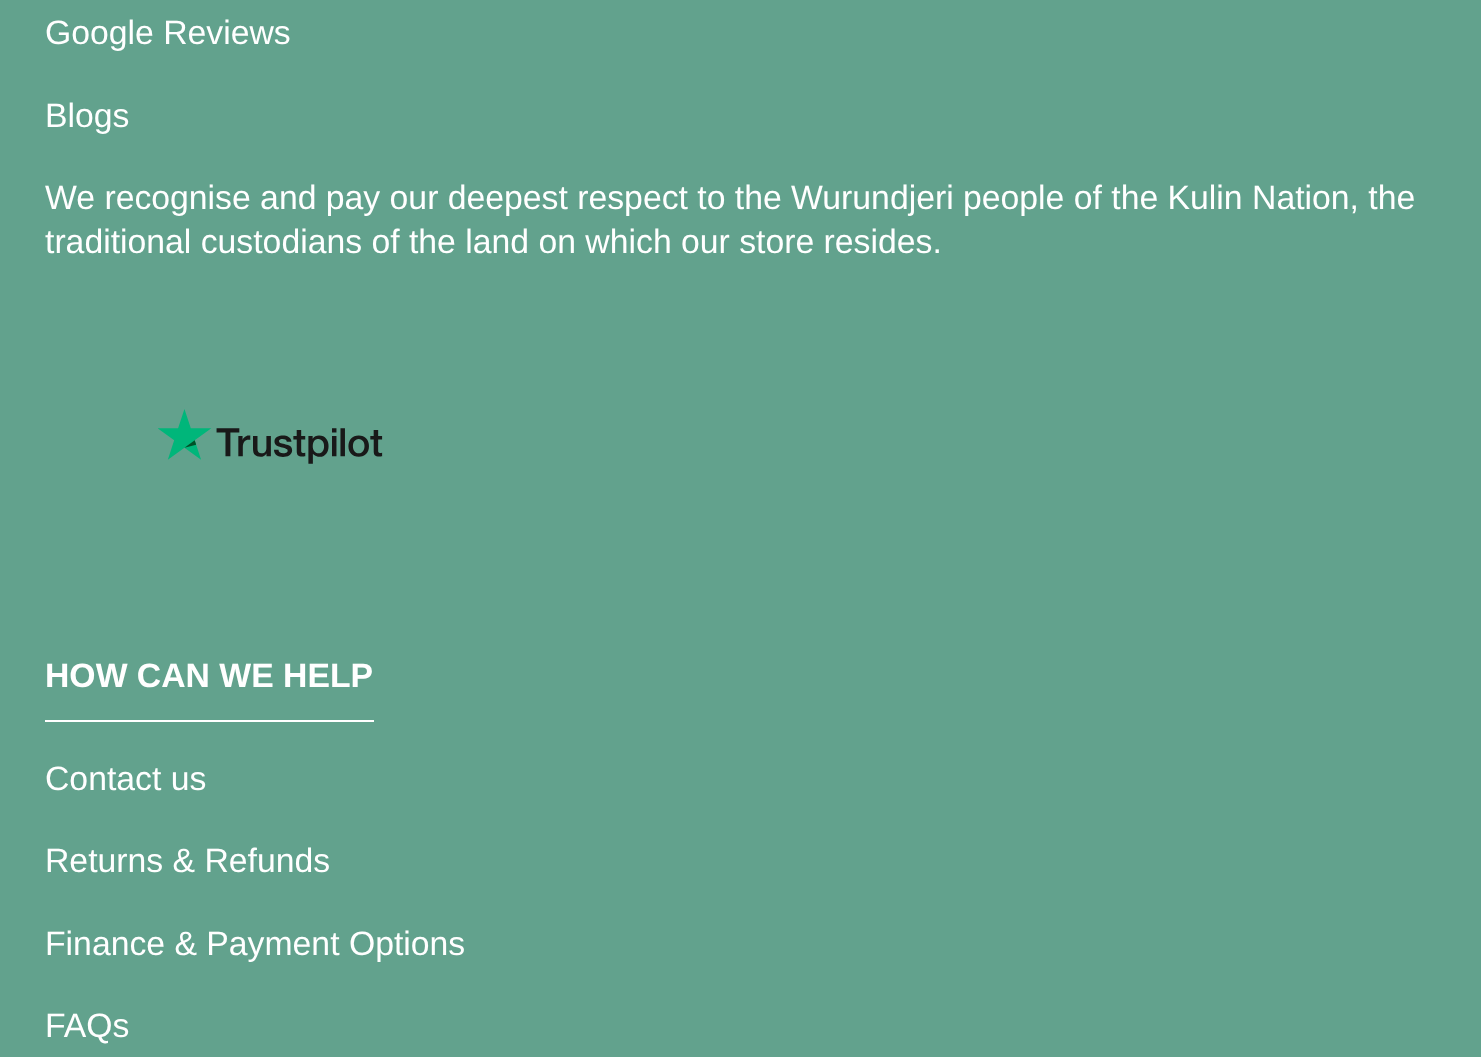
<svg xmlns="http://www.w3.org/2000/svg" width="1481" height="1057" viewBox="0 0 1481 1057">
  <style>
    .t1 { font: 33.75px Liberation Sans; fill: #fff; }
    .t2 { font: bold 33.75px Liberation Sans; fill: #fff; }
  </style>
  <rect width="100%" height="100%" fill="#62a28d"/>
  <text x="45" y="44" class="t1">Google Reviews</text>
  <text x="45" y="127" class="t1">Blogs</text>
  <text x="45" y="209" class="t1">We recognise and pay our deepest respect to the Wurundjeri people of the Kulin Nation, the</text>
  <text x="45" y="253" class="t1">traditional custodians of the land on which our store resides.</text>
  <image x="158" y="409" width="225" height="55" href="images/1.png"/>
  <rect x="45" y="720" width="329" height="2" fill="#fff"/>
  <text x="45" y="687" class="t2">HOW CAN WE HELP</text>
  <text x="45" y="790" class="t1">Contact us</text>
  <text x="45" y="872" class="t1">Returns &amp; Refunds</text>
  <text x="45" y="955" class="t1">Finance &amp; Payment Options</text>
  <text x="45" y="1037" class="t1">FAQs</text>
</svg>
